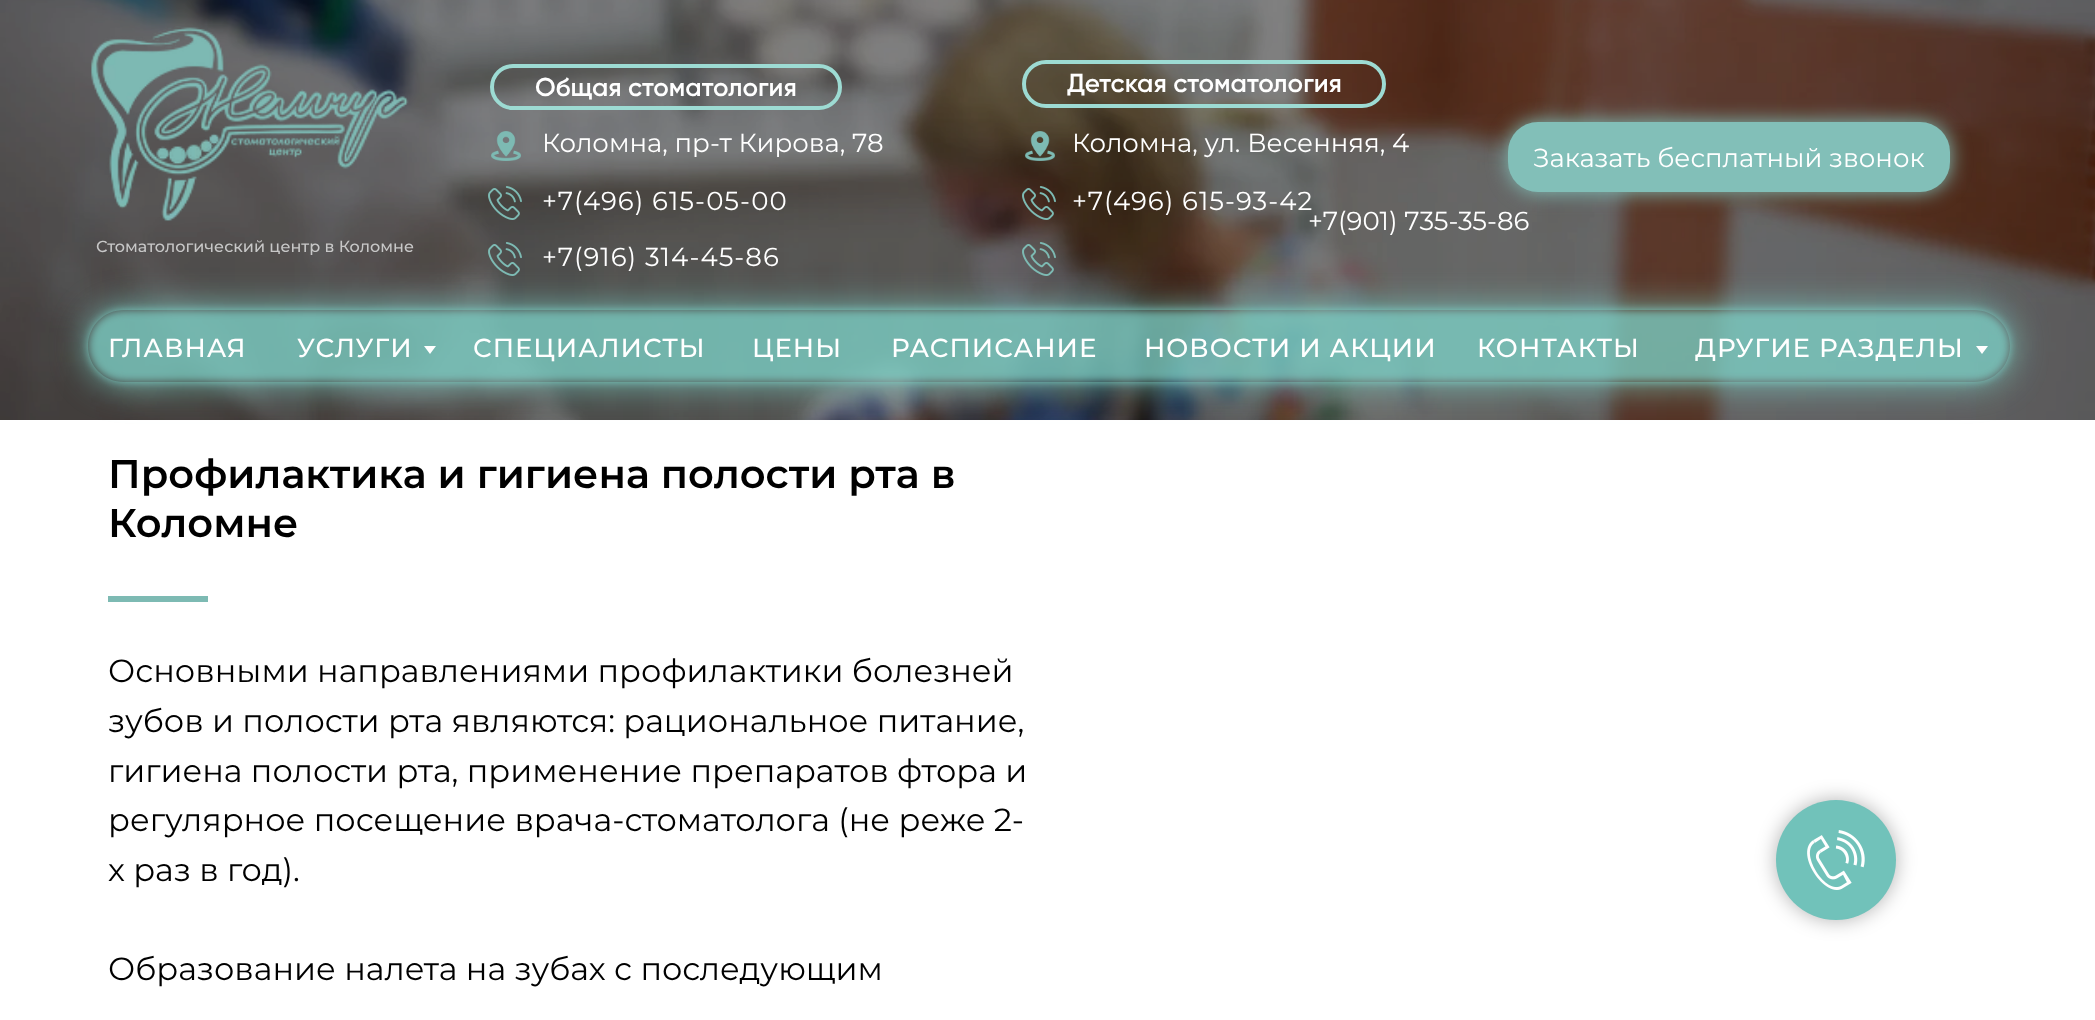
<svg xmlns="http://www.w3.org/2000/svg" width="2095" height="1020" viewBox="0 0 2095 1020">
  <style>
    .t1 { font: 600 26px Gilroy; fill: #fff; }
    .t2 { font: 26px 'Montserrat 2'; fill: #fff; }
    .t3 { font: 26px 'Montserrat 2'; letter-spacing: 1px; fill: #fff; }
    .t4 { font: 500 16px Montserrat; fill: #c7c7c7; }
    .t5 { font: 500 26px 'Montserrat 2'; letter-spacing: 1px; fill: #fff; }
    .t6 { font: 600 40px Montserrat; fill: #000; }
    .t7 { font: 32px Montserrat; fill: #000; }
  </style>
  <defs>
    <clipPath id="clip1"><path d="M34 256H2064V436H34ZM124 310H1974C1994 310 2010 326 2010 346C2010 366 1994 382 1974 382H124C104 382 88 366 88 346C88 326 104 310 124 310Z" clip-rule="evenodd"/></clipPath>
  </defs>
  <rect width="100%" height="100%" fill="#fff"/>
  <image x="0" y="0" width="2095" height="420" href="images/1.png"/>
  <image x="91" y="26" width="318" height="195" href="images/2.png"/>
  <rect x="492" y="66" width="348" height="42" rx="21" fill="none" stroke="#9ddbd3" stroke-width="4"/>
  <rect x="1024" y="62" width="360" height="44" rx="22" fill="none" stroke="#9ddbd3" stroke-width="4"/>
  <text x="1067" y="92" class="t1">Детская стоматология</text>
  <text x="535" y="96" class="t1">Общая стоматология</text>
  <image x="491" y="131" width="30" height="30" href="images/3.png"/>
  <text x="542" y="152" class="t2">Коломна, пр-т Кирова, 78</text>
  <image x="1025" y="131" width="30" height="30" href="images/4.png"/>
  <text x="1072" y="152" class="t2">Коломна, ул. Весенняя, 4</text>
  <rect x="1508" y="122" width="442" height="70" rx="30" fill="#82bfb8" filter="blur(10px)"/>
  <rect x="1508" y="122" width="442" height="70" rx="30" fill="#82bfb8"/>
  <text x="1533" y="167" class="t2">Заказать бесплатный звонок</text>
  <image x="488" y="186" width="34" height="34" href="images/5.png"/>
  <text x="542" y="210" class="t3">+7(496) 615-05-00</text>
  <image x="1022" y="186" width="34" height="34" href="images/6.png"/>
  <text x="1072" y="210" class="t3">+7(496) 615-93-42</text>
  <text x="1308" y="230" class="t2">+7(901) 735-35-86</text>
  <text x="96" y="252" class="t4">Стоматологический центр в Коломне</text>
  <image x="488" y="242" width="34" height="34" href="images/7.png"/>
  <text x="542" y="266" class="t3">+7(916) 314-45-86</text>
  <image x="1022" y="242" width="34" height="34" href="images/8.png"/>
  <g clip-path="url(#clip1)">
    <rect x="86" y="308" width="1926" height="76" rx="38" fill="#7ed5cbbf" filter="blur(17px)"/>
  </g>
  <rect x="88" y="310" width="1922" height="72" rx="36" fill="#7ed5cbbf" filter="blur(4px)"/>
  <text x="108" y="357" class="t5">ГЛАВНАЯ</text>
  <text x="297" y="357" class="t5">УСЛУГИ</text>
  <path d="M424 346H436L430 354Z" fill="#fff"/>
  <text x="473" y="357" class="t5">СПЕЦИАЛИСТЫ</text>
  <text x="752" y="357" class="t5">ЦЕНЫ</text>
  <text x="891" y="357" class="t5">РАСПИСАНИЕ</text>
  <text x="1144" y="357" class="t5">НОВОСТИ И АКЦИИ</text>
  <text x="1477" y="357" class="t5">КОНТАКТЫ</text>
  <text x="1695" y="357" class="t5">ДРУГИЕ РАЗДЕЛЫ</text>
  <path d="M1976 346H1988L1982 354Z" fill="#fff"/>
  <text x="108" y="488" class="t6">Профилактика и гигиена полости рта в</text>
  <text x="108" y="537" class="t6">Коломне</text>
  <rect x="108" y="596" width="100" height="6" fill="#7dbab3"/>
  <text x="108" y="682" class="t7">Основными направлениями профилактики болезней</text>
  <text x="108" y="732" class="t7">зубов и полости рта являются: рациональное питание,</text>
  <text x="108" y="782" class="t7">гигиена полости рта, применение препаратов фтора и</text>
  <text x="108" y="831" class="t7">регулярное посещение врача-стоматолога (не реже 2-</text>
  <text x="108" y="881" class="t7">х раз в год).</text>
  <text x="108" y="980" class="t7">Образование налета на зубах с последующим</text>
  <rect x="1776" y="800" width="120" height="120" rx="60" fill="#0000004d" filter="blur(10px)"/>
  <circle cx="1836" cy="860" r="60" fill="#71c2ba"/>
  <image x="1807" y="830" width="58" height="60" href="images/9.png"/>
</svg>
